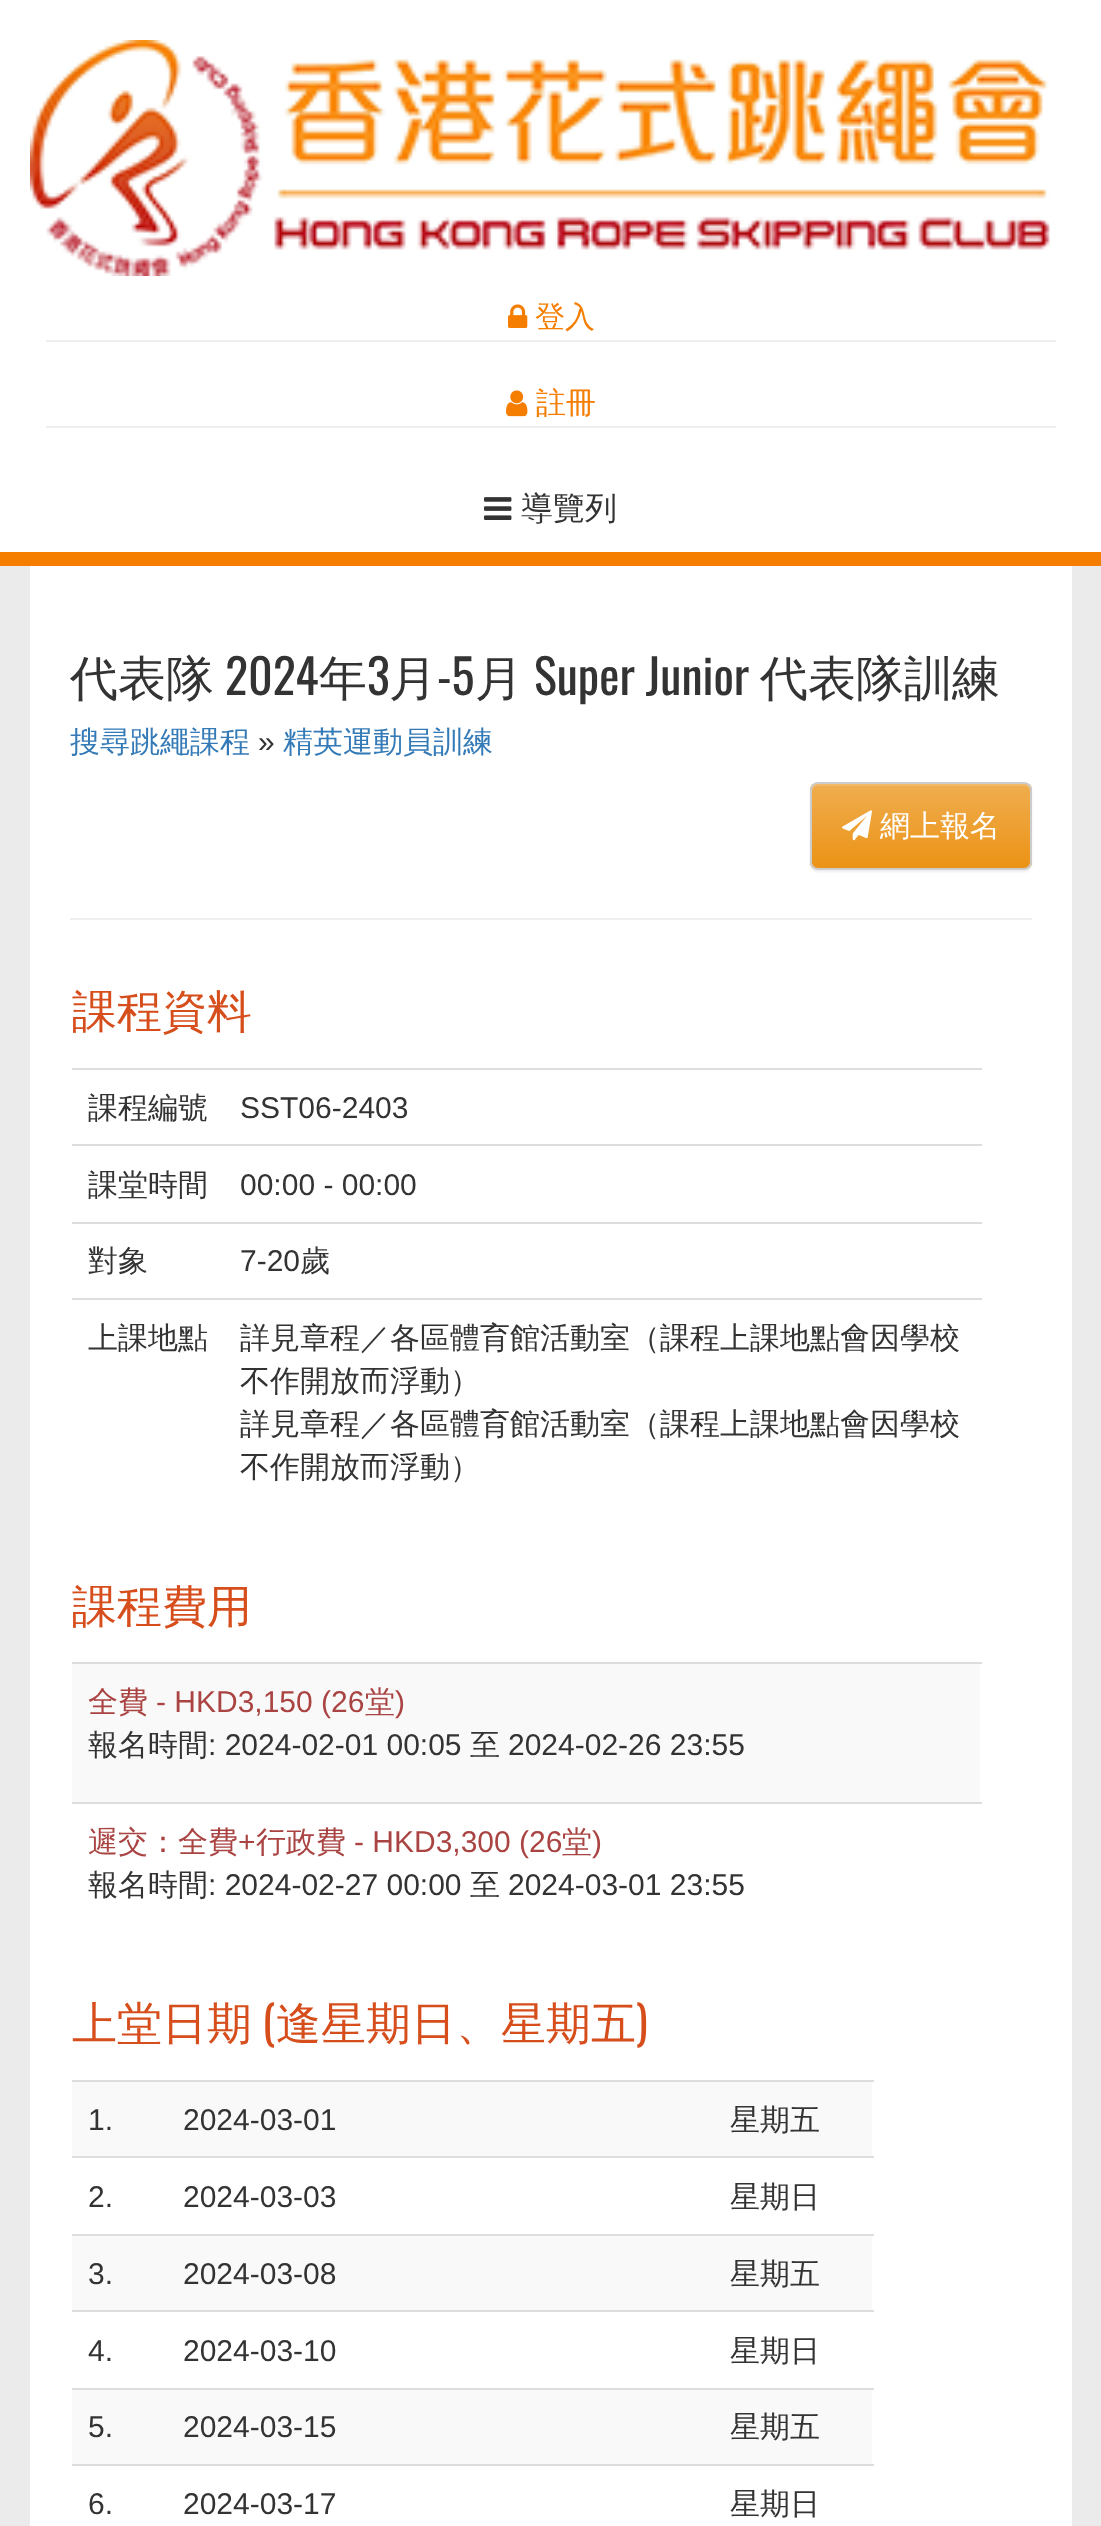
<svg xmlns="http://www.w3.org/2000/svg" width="1101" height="2526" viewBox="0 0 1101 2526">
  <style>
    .t1 { font: 500 30px WenQuanYi Zen Hei; fill: #f57d00; }
    .t2 { font: 500 32px WenQuanYi Zen Hei; fill: #333; }
    .t3 { font: 500 48px WenQuanYi Zen Hei; fill: #333; }
    .t4 { font: 48px Oswald; fill: #333; }
    .t5 { font: 500 30px WenQuanYi Zen Hei; fill: #337ab7; }
    .t6 { font: 30px Liberation Sans; fill: #333; }
    .t7 { font: 500 30px WenQuanYi Zen Hei; fill: #fff; }
    .t8 { font: 500 45px WenQuanYi Zen Hei; fill: #d74e1d; }
    .t9 { font: 500 30px WenQuanYi Zen Hei; fill: #333; }
    .t10 { font: 500 30px WenQuanYi Zen Hei; fill: #a94442; }
    .t11 { font: 30px Liberation Sans; fill: #a94442; }
    .t12 { font: 45px Oswald; fill: #d74e1d; }
  </style>
  <defs>
    <clipPath id="clip1"><rect x="810" y="782" width="222" height="88" rx="8"/></clipPath>
    <linearGradient id="g1" gradientUnits="userSpaceOnUse" x1="921" y1="784" x2="921" y2="868"><stop offset="0" stop-color="#f0ad4e"/><stop offset="1" stop-color="#eb9316"/></linearGradient>
  </defs>
  <rect width="100%" height="100%" fill="#ebebeb"/>
  <rect x="0" y="0" width="1101" height="552" fill="#fff"/>
  <rect x="0" y="552" width="1101" height="14" fill="#f57d00"/>
  <image x="30" y="40" width="1020" height="236" href="images/1.png"/>
  <rect x="46" y="340" width="1010" height="2" fill="#eee"/>
  <image x="508" y="304" width="20" height="24" href="images/2.png"/>
  <text x="535" y="327" class="t1">登入</text>
  <rect x="46" y="426" width="1010" height="2" fill="#eee"/>
  <image x="506" y="390" width="22" height="27" href="images/3.png"/>
  <text x="536" y="413" class="t1">註冊</text>
  <image x="484" y="497" width="28" height="23" href="images/4.png"/>
  <text x="521" y="519" class="t2">導覽列</text>
  <rect x="30" y="566" width="1042" height="1960" fill="#fff"/>
  <text x="70" y="695" class="t3">代表隊</text>
  <text x="225" y="695" class="t4">2024</text>
  <text x="319" y="695" class="t3">年</text>
  <text x="367" y="695" class="t4">3</text>
  <text x="389" y="695" class="t3">月</text>
  <text x="437" y="695" class="t4">-5</text>
  <text x="475" y="695" class="t3">月</text>
  <text x="534" y="695" class="t4">Super Junior</text>
  <text x="760" y="695" class="t3">代表隊訓練</text>
  <text x="70" y="752" class="t5">搜尋跳繩課程</text>
  <text x="258" y="752" class="t6">»</text>
  <text x="283" y="752" class="t5">精英運動員訓練</text>
  <rect x="810" y="784" width="222" height="88" rx="8" fill="#00000012" filter="blur(1px)"/>
  <g clip-path="url(#clip1)">
    <rect x="810" y="784" width="222" height="84" fill="url(#g1)"/>
  </g>
  <path d="M818 786H1024C1027 786 1030 789 1030 792V790C1030 787 1027 784 1024 784H818C815 784 812 787 812 790V792C812 789 815 786 818 786Z" fill="#ffffff26"/>
  <rect x="811" y="783" width="220" height="86" rx="7" fill="none" stroke="#ccc" stroke-width="2"/>
  <image x="842" y="810" width="30" height="31" href="images/5.png"/>
  <text x="880" y="836" class="t7">網上報名</text>
  <rect x="70" y="918" width="962" height="2" fill="#efefef"/>
  <text x="72" y="1027" class="t8">課程資料</text>
  <text x="88" y="1118" class="t9">課程編號</text>
  <rect x="72" y="1068" width="910" height="2" fill="#ddd"/>
  <text x="240" y="1118" class="t6">SST06-2403</text>
  <text x="88" y="1195" class="t9">課堂時間</text>
  <rect x="72" y="1144" width="910" height="2" fill="#ddd"/>
  <text x="240" y="1195" class="t6">00:00 - 00:00</text>
  <text x="88" y="1271" class="t9">對象</text>
  <rect x="72" y="1222" width="910" height="2" fill="#ddd"/>
  <text x="240" y="1271" class="t6">7-20</text>
  <text x="300" y="1271" class="t9">歲</text>
  <text x="88" y="1348" class="t9">上課地點</text>
  <rect x="72" y="1298" width="910" height="2" fill="#ddd"/>
  <text x="240" y="1348" class="t9">詳見章程／各區體育館活動室（課程上課地點會因學校</text>
  <text x="240" y="1391" class="t9">不作開放而浮動）</text>
  <text x="240" y="1434" class="t9">詳見章程／各區體育館活動室（課程上課地點會因學校</text>
  <text x="240" y="1477" class="t9">不作開放而浮動）</text>
  <text x="72" y="1622" class="t8">課程費用</text>
  <rect x="72" y="1664" width="908" height="138" fill="#f9f9f9"/>
  <rect x="72" y="1662" width="910" height="2" fill="#ddd"/>
  <text x="88" y="1712" class="t10">全費</text>
  <text x="156" y="1712" class="t11">- HKD3,150 (26</text>
  <text x="365" y="1712" class="t10">堂</text>
  <text x="395" y="1712" class="t11">)</text>
  <text x="88" y="1755" class="t9">報名時間</text>
  <text x="208" y="1755" class="t6">: 2024-02-01 00:05</text>
  <text x="470" y="1755" class="t9">至</text>
  <text x="508" y="1755" class="t6">2024-02-26 23:55</text>
  <rect x="72" y="1802" width="910" height="2" fill="#ddd"/>
  <text x="88" y="1852" class="t10">遲交：全費</text>
  <text x="238" y="1852" class="t11">+</text>
  <text x="256" y="1852" class="t10">行政費</text>
  <text x="354" y="1852" class="t11">- HKD3,300 (26</text>
  <text x="562" y="1852" class="t10">堂</text>
  <text x="592" y="1852" class="t11">)</text>
  <text x="88" y="1895" class="t9">報名時間</text>
  <text x="208" y="1895" class="t6">: 2024-02-27 00:00</text>
  <text x="470" y="1895" class="t9">至</text>
  <text x="508" y="1895" class="t6">2024-03-01 23:55</text>
  <text x="72" y="2039" class="t8">上堂日期</text>
  <text x="262" y="2039" class="t12">(</text>
  <text x="276" y="2039" class="t8">逢星期日、星期五</text>
  <text x="636" y="2039" class="t12">)</text>
  <rect x="72" y="2082" width="800" height="74" fill="#f9f9f9"/>
  <text x="88" y="2130" class="t6">1.</text>
  <text x="183" y="2130" class="t6">2024-03-01</text>
  <rect x="72" y="2080" width="802" height="2" fill="#ddd"/>
  <text x="730" y="2130" class="t9">星期五</text>
  <text x="88" y="2207" class="t6">2.</text>
  <text x="183" y="2207" class="t6">2024-03-03</text>
  <rect x="72" y="2156" width="802" height="2" fill="#ddd"/>
  <text x="730" y="2207" class="t9">星期日</text>
  <rect x="72" y="2236" width="800" height="74" fill="#f9f9f9"/>
  <text x="88" y="2284" class="t6">3.</text>
  <text x="183" y="2284" class="t6">2024-03-08</text>
  <rect x="72" y="2234" width="802" height="2" fill="#ddd"/>
  <text x="730" y="2284" class="t9">星期五</text>
  <text x="88" y="2361" class="t6">4.</text>
  <text x="183" y="2361" class="t6">2024-03-10</text>
  <rect x="72" y="2310" width="802" height="2" fill="#ddd"/>
  <text x="730" y="2361" class="t9">星期日</text>
  <rect x="72" y="2390" width="800" height="74" fill="#f9f9f9"/>
  <text x="88" y="2437" class="t6">5.</text>
  <text x="183" y="2437" class="t6">2024-03-15</text>
  <rect x="72" y="2388" width="802" height="2" fill="#ddd"/>
  <text x="730" y="2437" class="t9">星期五</text>
  <text x="88" y="2514" class="t6">6.</text>
  <text x="183" y="2514" class="t6">2024-03-17</text>
  <rect x="72" y="2464" width="802" height="2" fill="#ddd"/>
  <text x="730" y="2514" class="t9">星期日</text>
</svg>
